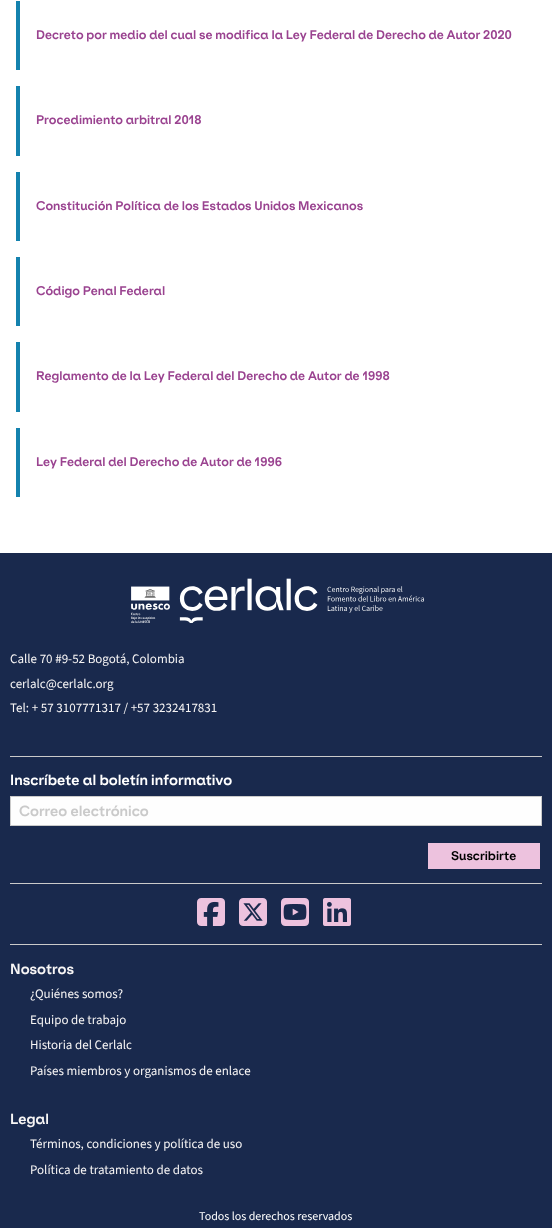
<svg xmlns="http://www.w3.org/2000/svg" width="552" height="1228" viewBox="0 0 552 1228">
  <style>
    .t1 { font: bold 12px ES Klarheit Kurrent; fill: #9a4390; }
    .t2 { font: 13px 'Source Sans 3'; fill: #f7f5f5; }
    .t3 { font: bold 14px ES Klarheit Kurrent; fill: #fff; }
    .t4 { font: bold 14px ES Klarheit Kurrent; fill: #cacaca; }
    .t5 { font: bold 12px ES Klarheit Kurrent; fill: #000; }
    .t6 { font: bold 14px ES Klarheit Kurrent; fill: #f7f5f5; }
    .t7 { font: 12px 'Source Sans 3'; fill: #fff; }
  </style>
  <rect width="100%" height="100%" fill="#fff"/>
  <rect x="16" y="1" width="4" height="69" fill="#1482ae"/>
  <text x="36" y="39" class="t1">Decreto por medio del cual se modifica la Ley Federal de Derecho de Autor 2020</text>
  <rect x="16" y="86" width="4" height="70" fill="#1482ae"/>
  <text x="36" y="124" class="t1">Procedimiento arbitral 2018</text>
  <rect x="16" y="172" width="4" height="69" fill="#1482ae"/>
  <text x="36" y="210" class="t1">Constitución Política de los Estados Unidos Mexicanos</text>
  <rect x="16" y="257" width="4" height="69" fill="#1482ae"/>
  <text x="36" y="295" class="t1">Código Penal Federal</text>
  <rect x="16" y="342" width="4" height="70" fill="#1482ae"/>
  <text x="36" y="380" class="t1">Reglamento de la Ley Federal del Derecho de Autor de 1998</text>
  <rect x="16" y="428" width="4" height="69" fill="#1482ae"/>
  <text x="36" y="466" class="t1">Ley Federal del Derecho de Autor de 1996</text>
  <rect x="0" y="553" width="552" height="675" fill="#19294d"/>
  <image x="131" y="578" width="293" height="45" href="images/1.png"/>
  <text x="10" y="663" class="t2">Calle 70 #9-52 Bogotá, Colombia</text>
  <text x="10" y="688" class="t2">cerlalc@cerlalc.org</text>
  <text x="10" y="712" class="t2">Tel: + 57 3107771317 / +57 3232417831</text>
  <rect x="10" y="756" width="532" height="1" fill="#cacaca"/>
  <text x="10" y="785" class="t3">Inscríbete al boletín informativo</text>
  <rect x="10.5" y="796.5" width="531" height="29" fill="#fefefe" stroke="#cacaca"/>
  <text x="19" y="816" class="t4">Correo electrónico</text>
  <rect x="428" y="843" width="112" height="26" fill="#edc2de"/>
  <text x="451" y="860" class="t5">Suscribirte</text>
  <rect x="10" y="883" width="532" height="1" fill="#cacaca"/>
  <image x="197" y="898" width="28" height="28" href="images/2.png"/>
  <image x="239" y="898" width="28" height="28" href="images/3.png"/>
  <image x="281" y="898" width="28" height="28" href="images/4.png"/>
  <image x="323" y="898" width="28" height="28" href="images/5.png"/>
  <rect x="10" y="944" width="532" height="1" fill="#cacaca"/>
  <text x="10" y="974" class="t6">Nosotros</text>
  <text x="30" y="998" class="t2">¿Quiénes somos?</text>
  <text x="30" y="1024" class="t2">Equipo de trabajo</text>
  <text x="30" y="1049" class="t2">Historia del Cerlalc</text>
  <text x="30" y="1075" class="t2">Países miembros y organismos de enlace</text>
  <text x="10" y="1124" class="t6">Legal</text>
  <text x="30" y="1148" class="t2">Términos, condiciones y política de uso</text>
  <text x="30" y="1174" class="t2">Política de tratamiento de datos</text>
  <text x="199" y="1220" class="t7">Todos los derechos reservados</text>
</svg>
